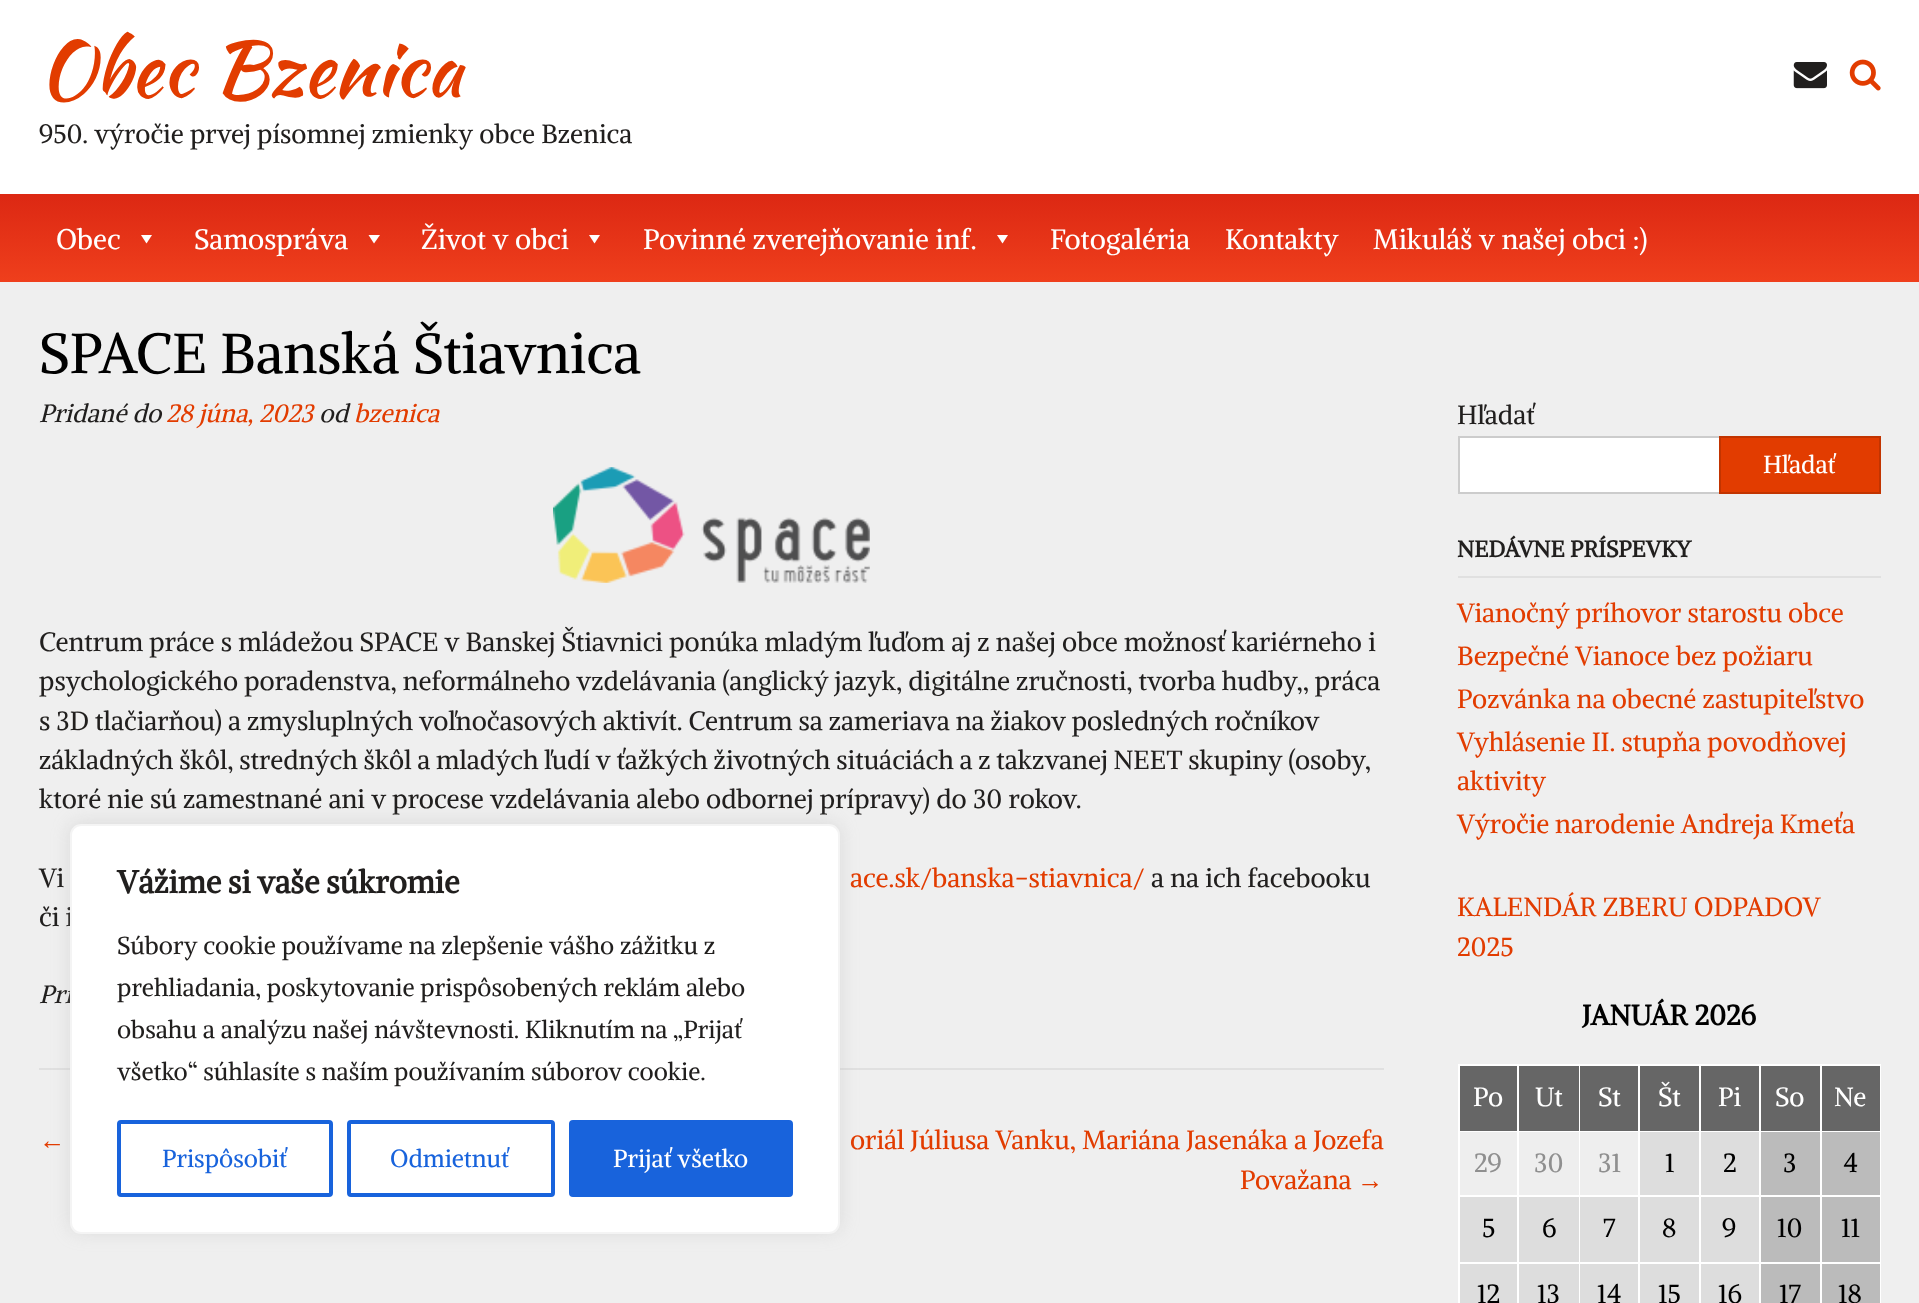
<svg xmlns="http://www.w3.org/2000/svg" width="1919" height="1303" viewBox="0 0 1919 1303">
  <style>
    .t1 { font: 77px Kaushan Script; fill: #e23c00; }
    .t2 { font: 26.25px Alike; fill: #211f1e; }
    .t3 { font: 28px Alike; fill: #fff; }
    .t4 { font: 56px Alike; fill: #000; }
    .t5 { font: italic 25px Alike; fill: #211f1e; }
    .t6 { font: italic 25px Alike; fill: #e23c00; }
    .t7 { font: 26.25px Alike; fill: #e23c00; }
    .t8 { font: 26.25px Liberation Sans; fill: #e23c00; }
    .t9 { font: 24.5px Alike; fill: #fff; }
    .t10 { font: bold 22.75px Alike; fill: #211f1e; }
    .t11 { font: bold 28px Alike; fill: #000; }
    .t12 { font: 26.25px Alike; fill: #fff; }
    .t13 { font: 26.25px Alike; fill: #8f8f8f; }
    .t14 { font: 26.25px Alike; fill: #000; }
    .t15 { font: bold 31.5px Alike; fill: #211f1e; }
    .t16 { font: 24.5px Alike; fill: #211f1e; }
    .t17 { font: 24.5px Alike; fill: #1863dc; }
  </style>
  <defs>
    <linearGradient id="g1" gradientUnits="userSpaceOnUse" x1="960" y1="194" x2="960" y2="282"><stop offset="0" stop-color="#dc2813"/><stop offset="1" stop-color="#ef3f1c"/></linearGradient>
  </defs>
  <rect width="100%" height="100%" fill="#efefef"/>
  <rect x="0" y="0" width="1919" height="194" fill="#fff"/>
  <text x="39" y="96" class="t1">Obec Bzenica</text>
  <text x="39" y="143" class="t2">950. výročie prvej písomnej zmienky obce Bzenica</text>
  <image x="1793" y="62" width="34" height="27" href="images/1.png"/>
  <image x="1849" y="59" width="32" height="32" href="images/2.png"/>
  <rect x="0" y="194" width="1919" height="88" fill="url(#g1)"/>
  <text x="56" y="249" class="t3">Obec</text>
  <path d="M152 235L146.5 243.5L141 235Z" fill="#fff"/>
  <text x="194" y="249" class="t3">Samospráva</text>
  <path d="M380 235L374 243.5L368.5 235Z" fill="#fff"/>
  <text x="421" y="249" class="t3">Život v obci</text>
  <path d="M600 235L594.5 243.5L589 235Z" fill="#fff"/>
  <text x="643" y="249" class="t3">Povinné zverejňovanie inf.</text>
  <path d="M1008 235L1002.5 243.5L997 235Z" fill="#fff"/>
  <text x="1050" y="249" class="t3">Fotogaléria</text>
  <text x="1225" y="249" class="t3">Kontakty</text>
  <text x="1373" y="249" class="t3">Mikuláš v našej obci :)</text>
  <rect x="39" y="1068" width="1345" height="2" fill="#e0e0e0"/>
  <text x="39" y="373" class="t4">SPACE Banská Štiavnica</text>
  <text x="39" y="422" class="t5">Pridané do</text>
  <text x="166" y="422" class="t6">28 júna, 2023</text>
  <text x="319" y="422" class="t5">od</text>
  <text x="354" y="422" class="t6">bzenica</text>
  <image x="553" y="467" width="317" height="116" href="images/3.png"/>
  <text x="39" y="651" class="t2">Centrum práce s mládežou SPACE v Banskej Štiavnici ponúka mladým ľuďom aj z našej obce možnosť kariérneho i</text>
  <text x="39" y="690" word-spacing="-0.25" class="t2">psychologického poradenstva, neformálneho vzdelávania (anglický jazyk, digitálne zručnosti, tvorba hudby,, práca</text>
  <text x="39" y="730" word-spacing="-0.25" class="t2">s 3D tlačiarňou) a zmysluplných voľnočasových aktivít. Centrum sa zameriava na žiakov posledných ročníkov</text>
  <text x="39" y="769" word-spacing="-0.5" class="t2">základných škôl, stredných škôl a mladých ľudí v ťažkých životných situáciách a z takzvanej NEET skupiny (osoby,</text>
  <text x="39" y="808" class="t2">ktoré nie sú zamestnané ani v procese vzdelávania alebo odbornej prípravy) do 30 rokov.</text>
  <text x="39" y="887" class="t2">Vi</text>
  <text x="850" y="887" class="t7">ace.sk/banska-stiavnica/</text>
  <text x="1151" y="887" class="t2">a na ich facebooku</text>
  <text x="39" y="926" class="t2">či i</text>
  <text x="39" y="1003" class="t5">Pri</text>
  <text x="39" y="1149" class="t8">←</text>
  <text x="850" y="1149" class="t7">oriál Júliusa Vanku, Mariána Jasenáka a Jozefa</text>
  <text x="1240" y="1189" class="t7">Považana</text>
  <text x="1357" y="1189" class="t8">→</text>
  <text x="1457" y="424" class="t2">Hľadať</text>
  <rect x="1460" y="438" width="259" height="54" fill="#fff"/>
  <rect x="1458" y="436" width="261" height="2" fill="#ccc"/>
  <rect x="1458" y="492" width="261" height="2" fill="#ccc"/>
  <rect x="1458" y="436" width="2" height="58" fill="#ccc"/>
  <rect x="1720" y="437" width="160" height="56" fill="#e23c00" stroke="#c23400" stroke-width="2"/>
  <text x="1763" y="473" class="t9">Hľadať</text>
  <rect x="1458" y="576" width="423" height="2" fill="#e0e0e0"/>
  <text x="1457" y="557" class="t10">NEDÁVNE PRÍSPEVKY</text>
  <text x="1457" y="622" class="t7">Vianočný príhovor starostu obce</text>
  <text x="1457" y="665" class="t7">Bezpečné Vianoce bez požiaru</text>
  <text x="1457" y="708" class="t7">Pozvánka na obecné zastupiteľstvo</text>
  <text x="1457" y="751" class="t7">Vyhlásenie II. stupňa povodňovej</text>
  <text x="1457" y="790" class="t7">aktivity</text>
  <text x="1457" y="833" word-spacing="-0.5" class="t7">Výročie narodenie Andreja Kmeťa</text>
  <text x="1457" y="916" class="t7">KALENDÁR ZBERU ODPADOV</text>
  <text x="1457" y="956" class="t7">2025</text>
  <text x="1582" y="1025" class="t11">JANUÁR 2026</text>
  <rect x="1458" y="1064" width="423" height="239" fill="#fff"/>
  <rect x="1460" y="1066" width="57" height="65" fill="#666"/>
  <text x="1473" y="1106" class="t12">Po</text>
  <rect x="1519" y="1066" width="60" height="65" fill="#666"/>
  <text x="1535" y="1106" class="t12">Ut</text>
  <rect x="1580" y="1066" width="58" height="65" fill="#666"/>
  <text x="1598" y="1106" class="t12">St</text>
  <rect x="1640" y="1066" width="59" height="65" fill="#666"/>
  <text x="1658" y="1106" class="t12">Št</text>
  <rect x="1701" y="1066" width="58" height="65" fill="#666"/>
  <text x="1718" y="1106" class="t12">Pi</text>
  <rect x="1761" y="1066" width="59" height="65" fill="#666"/>
  <text x="1775" y="1106" class="t12">So</text>
  <rect x="1822" y="1066" width="58" height="65" fill="#666"/>
  <text x="1834" y="1106" class="t12">Ne</text>
  <rect x="1460" y="1132" width="57" height="63" fill="#eee"/>
  <text x="1474" y="1172" class="t13">29</text>
  <rect x="1519" y="1132" width="60" height="63" fill="#eee"/>
  <text x="1534" y="1172" class="t13">30</text>
  <rect x="1580" y="1132" width="58" height="63" fill="#eee"/>
  <text x="1598" y="1172" class="t13">31</text>
  <rect x="1640" y="1132" width="59" height="63" fill="#ddd"/>
  <text x="1665" y="1172" class="t14">1</text>
  <rect x="1701" y="1132" width="58" height="63" fill="#ddd"/>
  <text x="1723" y="1172" class="t14">2</text>
  <rect x="1761" y="1132" width="59" height="63" fill="#bbb"/>
  <text x="1783" y="1172" class="t14">3</text>
  <rect x="1822" y="1132" width="58" height="63" fill="#bbb"/>
  <text x="1843" y="1172" class="t14">4</text>
  <rect x="1460" y="1197" width="57" height="65" fill="#ddd"/>
  <text x="1482" y="1237" class="t14">5</text>
  <rect x="1519" y="1197" width="60" height="65" fill="#ddd"/>
  <text x="1542" y="1237" class="t14">6</text>
  <rect x="1580" y="1197" width="58" height="65" fill="#ddd"/>
  <text x="1603" y="1237" class="t14">7</text>
  <rect x="1640" y="1197" width="59" height="65" fill="#ddd"/>
  <text x="1662" y="1237" class="t14">8</text>
  <rect x="1701" y="1197" width="58" height="65" fill="#ddd"/>
  <text x="1722" y="1237" class="t14">9</text>
  <rect x="1761" y="1197" width="59" height="65" fill="#bbb"/>
  <text x="1777" y="1237" class="t14">10</text>
  <rect x="1822" y="1197" width="58" height="65" fill="#bbb"/>
  <text x="1841" y="1237" class="t14">11</text>
  <rect x="1460" y="1264" width="57" height="39" fill="#ddd"/>
  <text x="1477" y="1303" class="t14">12</text>
  <rect x="1519" y="1264" width="60" height="39" fill="#ddd"/>
  <text x="1537" y="1303" class="t14">13</text>
  <rect x="1580" y="1264" width="58" height="39" fill="#ddd"/>
  <text x="1597" y="1303" class="t14">14</text>
  <rect x="1640" y="1264" width="59" height="39" fill="#ddd"/>
  <text x="1658" y="1303" class="t14">15</text>
  <rect x="1701" y="1264" width="58" height="39" fill="#ddd"/>
  <text x="1718" y="1303" class="t14">16</text>
  <rect x="1761" y="1264" width="59" height="39" fill="#bbb"/>
  <text x="1779" y="1303" class="t14">17</text>
  <rect x="1822" y="1264" width="58" height="39" fill="#bbb"/>
  <text x="1838" y="1303" class="t14">18</text>
  <rect x="70" y="823" width="770" height="409" rx="11" fill="#acabab4d" filter="blur(9px)"/>
  <rect x="71" y="825" width="768" height="408" rx="10" fill="#fff" stroke="#f4f4f4" stroke-width="2"/>
  <text x="117" y="893" word-spacing="-1" class="t15">Vážime si vaše súkromie</text>
  <text x="117" y="954" class="t16">Súbory cookie používame na zlepšenie vášho zážitku z</text>
  <text x="117" y="996" class="t16">prehliadania, poskytovanie prispôsobených reklám alebo</text>
  <text x="117" y="1038" class="t16">obsahu a analýzu našej návštevnosti. Kliknutím na „Prijať</text>
  <text x="117" y="1080" class="t16">všetko“ súhlasíte s naším používaním súborov cookie.</text>
  <rect x="119" y="1122" width="212" height="73" rx="2" fill="none" stroke="#1863dc" stroke-width="4"/>
  <text x="162" y="1167" class="t17">Prispôsobiť</text>
  <rect x="349" y="1122" width="204" height="73" rx="2" fill="none" stroke="#1863dc" stroke-width="4"/>
  <text x="390" y="1167" class="t17">Odmietnuť</text>
  <rect x="571" y="1122" width="220" height="73" rx="2" fill="#1863dc" stroke="#1863dc" stroke-width="4"/>
  <text x="613" y="1167" class="t9">Prijať všetko</text>
</svg>
